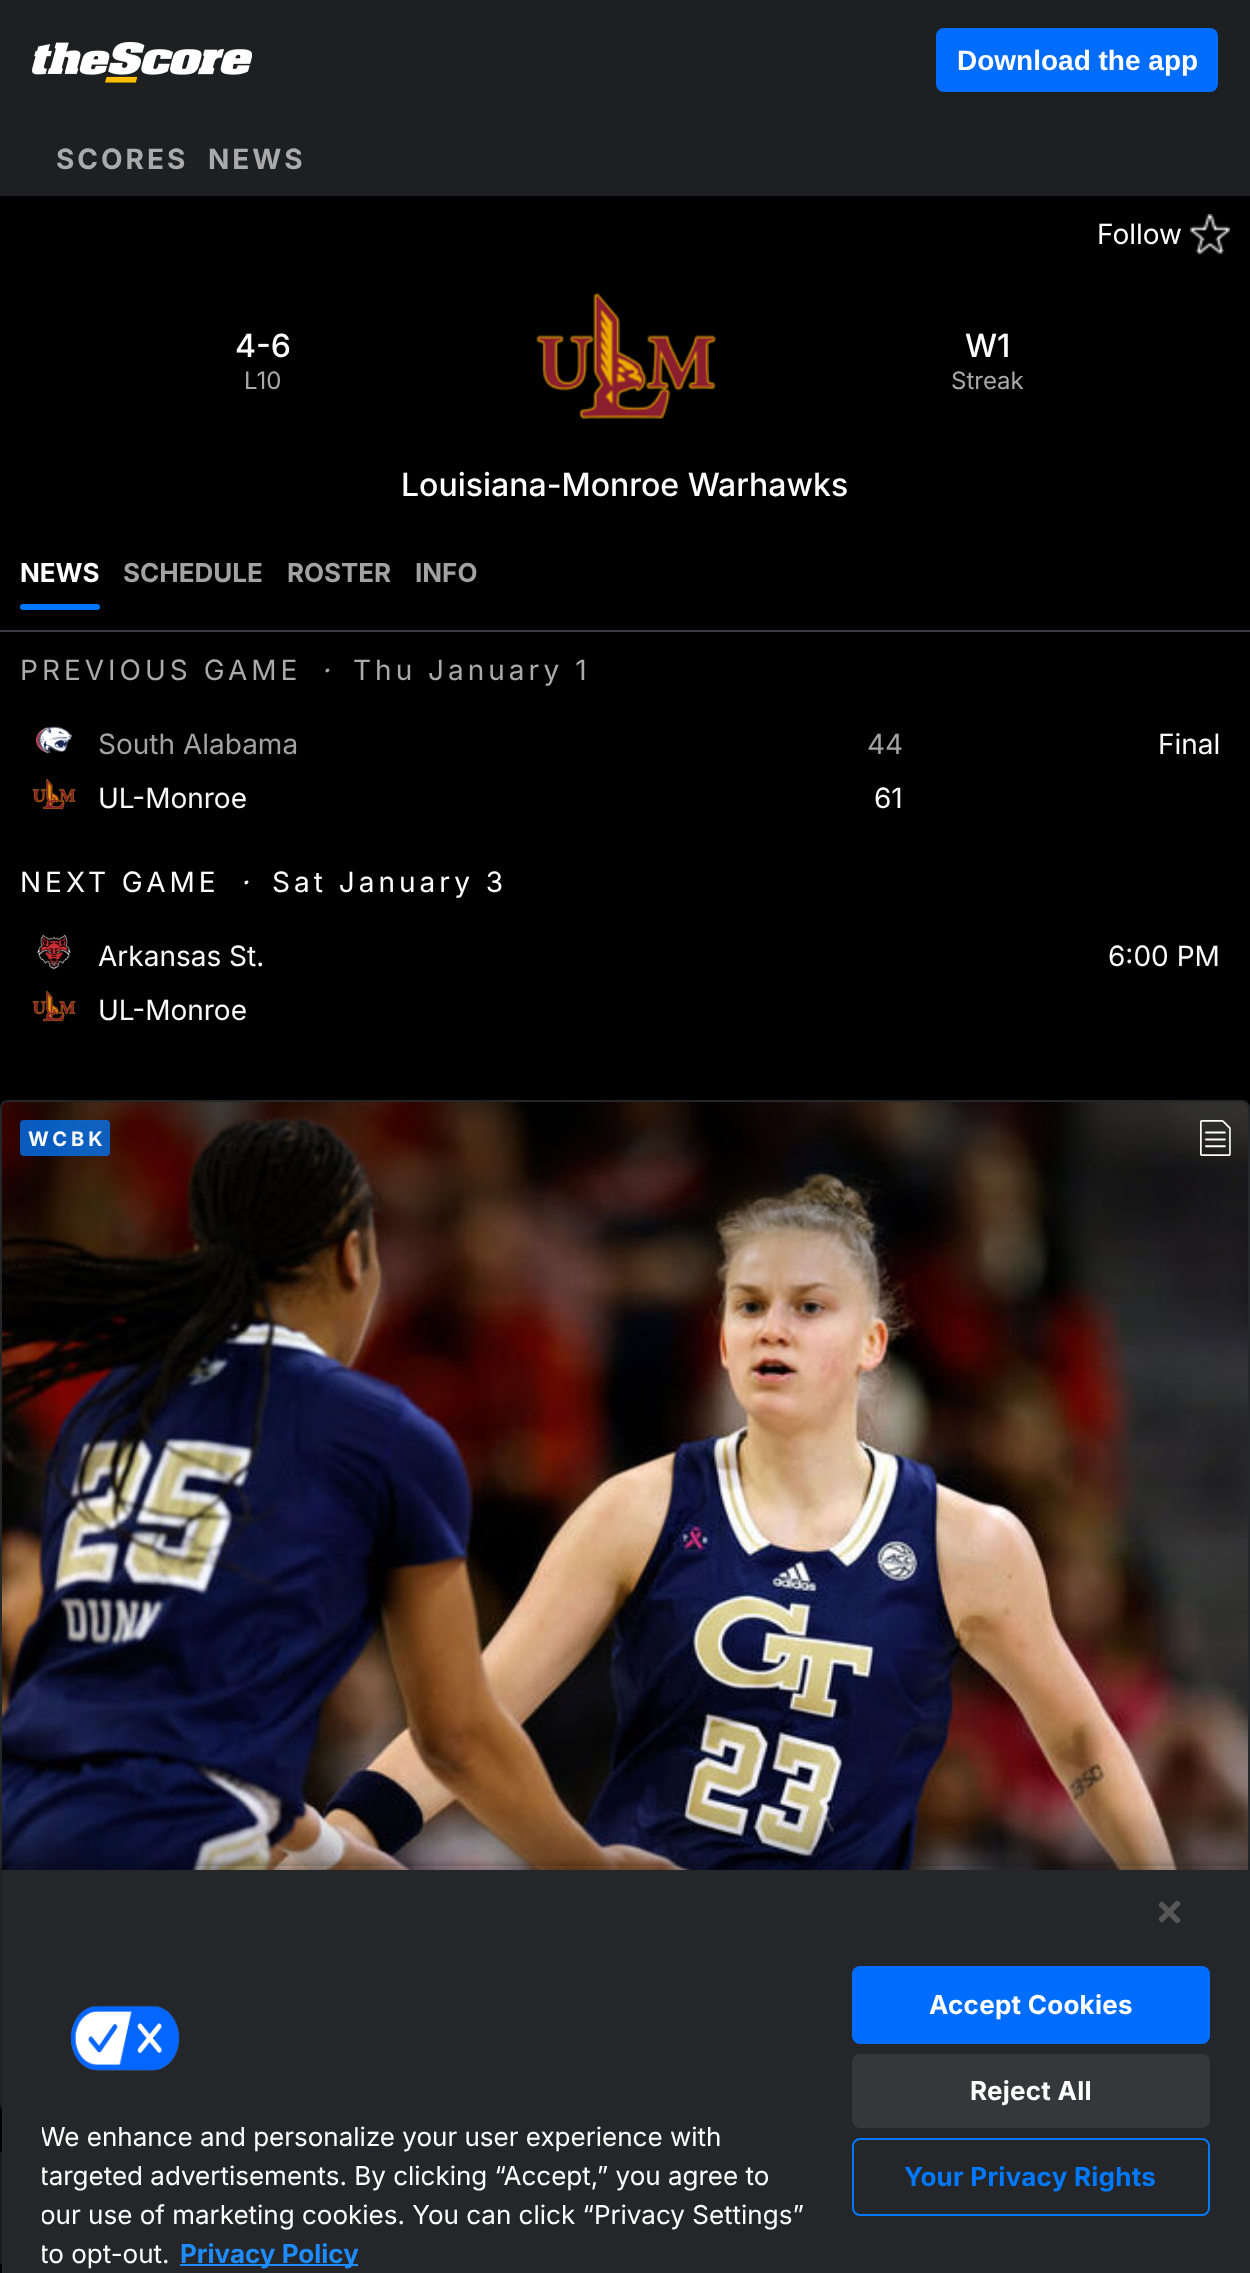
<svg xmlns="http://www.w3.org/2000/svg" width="1250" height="2273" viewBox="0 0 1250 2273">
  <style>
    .t1 { font: bold 28px Liberation Sans; fill: #fff; }
    .t2 { font: bold 28px Inter; letter-spacing: 3px; fill: #aaa; }
    .t3 { font: 28px Inter; fill: #fff; }
    .t4 { font: 500 32px Inter; fill: #fff; }
    .t5 { font: 24px Inter; fill: #aaa; }
    .t6 { font: bold 26px Inter; fill: #fff; }
    .t7 { font: bold 26px Inter; fill: #a2a2a2; }
    .t8 { font: 28px Inter; letter-spacing: 4px; fill: #aaa; }
    .t9 { font: italic 28px Inter; letter-spacing: 4px; fill: #aaa; }
    .t10 { font: 28px Inter; fill: #a2a2a2; }
    .t11 { font: 28px Inter; fill: #f9f9f9; }
    .t12 { font: 28px Inter; letter-spacing: 4px; fill: #fff; }
    .t13 { font: italic 28px Inter; letter-spacing: 4px; fill: #fff; }
    .t14 { font: bold 20px Inter; letter-spacing: 4px; fill: #f9f9f9; }
    .t15 { font: 26px Inter; fill: #fff; }
    .t16 { font: bold 26px Inter; fill: #1e8cff; }
    .t17 { font: bold 26px Inter; letter-spacing: 0.25px; fill: #fff; }
    .t18 { font: bold 26px Inter; letter-spacing: 0.25px; fill: #0079ff; }
  </style>
  <defs>
    <linearGradient id="g1" gradientUnits="userSpaceOnUse" x1="625" y1="1102" x2="625" y2="1336"><stop offset="0" stop-color="#000" stop-opacity="0.45"/><stop offset="1" stop-color="#000" stop-opacity="0"/></linearGradient>
    <clipPath id="clip1"><path d="M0 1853H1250V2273H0ZM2 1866H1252V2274H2Z" clip-rule="evenodd"/></clipPath>
    <clipPath id="clip2"><rect x="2" y="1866" width="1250" height="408"/></clipPath>
    <clipPath id="clip3"><rect x="42" y="2118" width="764" height="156"/></clipPath>
  </defs>
  <rect width="100%" height="100%" fill="#000"/>
  <rect x="0" y="0" width="1250" height="196" fill="#1e1f21"/>
  <image x="32" y="42" width="220" height="41" href="images/1.png"/>
  <rect x="936" y="28" width="282" height="64" rx="8" fill="#006dff"/>
  <text x="957" y="70" class="t1">Download the app</text>
  <text x="56" y="169" class="t2">SCORES</text>
  <text x="208" y="169" class="t2">NEWS</text>
  <text x="1097" y="244" class="t3">Follow</text>
  <image x="1190" y="214" width="40" height="40" href="images/2.png"/>
  <text x="235" y="357" class="t4">4-6</text>
  <text x="244" y="389" class="t5">L10</text>
  <image x="536" y="293" width="181" height="126" href="images/3.png"/>
  <text x="965" y="357" class="t4">W1</text>
  <text x="951" y="389" class="t5">Streak</text>
  <text x="401" y="496" class="t4">Louisiana-Monroe Warhawks</text>
  <rect x="0" y="630" width="1250" height="2" fill="#393c42"/>
  <text x="20" y="582" class="t6">NEWS</text>
  <rect x="20" y="604" width="80" height="6" rx="3" fill="#0078fd"/>
  <text x="123" y="582" class="t7">SCHEDULE</text>
  <text x="287" y="582" class="t7">ROSTER</text>
  <text x="415" y="582" class="t7">INFO</text>
  <text x="20" y="680" class="t8">PREVIOUS GAME</text>
  <text x="321" y="680" class="t9">·</text>
  <text x="353" y="680" class="t8">Thu January 1</text>
  <image x="36" y="726" width="36" height="28" href="images/4.png"/>
  <text x="98" y="754" class="t10">South Alabama</text>
  <text x="867" y="754" class="t10">44</text>
  <text x="1158" y="754" class="t11">Final</text>
  <image x="32" y="778" width="44" height="32" href="images/5.png"/>
  <text x="98" y="808" class="t11">UL-Monroe</text>
  <text x="874" y="808" class="t11">61</text>
  <text x="20" y="892" class="t12">NEXT GAME</text>
  <text x="240" y="892" class="t13">·</text>
  <text x="272" y="892" class="t12">Sat January 3</text>
  <image x="37" y="934" width="34" height="36" href="images/6.png"/>
  <text x="98" y="966" class="t11">Arkansas St.</text>
  <text x="1108" y="966" class="t11">6:00 PM</text>
  <image x="32" y="990" width="44" height="32" href="images/5.png"/>
  <text x="98" y="1020" class="t11">UL-Monroe</text>
  <rect x="1" y="1101" width="1248" height="1010" rx="7" fill="none" stroke="#242628" stroke-width="2"/>
  <image x="2" y="1102" width="1246" height="768" href="images/7.png"/>
  <path d="M8 1102H1242C1245.5 1102 1248 1104.5 1248 1108V1336H2V1108C2 1104.5 4.5 1102 8 1102Z" fill="url(#g1)"/>
  <image x="1200" y="1120" width="31" height="36" href="images/8.png"/>
  <rect x="20" y="1120" width="90" height="36" rx="4" fill="#0078fdbf"/>
  <text x="28" y="1146" class="t14">WCBK</text>
  <rect x="0" y="2152" width="2" height="112" fill="#1e1f21"/>
  <g clip-path="url(#clip1)">
    <rect x="2" y="1866" width="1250" height="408" fill="#00000059" filter="blur(4px)"/>
  </g>
  <g clip-path="url(#clip2)">
    <rect x="2" y="1870" width="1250" height="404" fill="#00000033" filter="blur(4px)"/>
  </g>
  <rect x="2" y="1870" width="1248" height="403" fill="#242629"/>
  <image x="1158" y="1900" width="23" height="24" href="images/9.png"/>
  <image x="70" y="2005" width="110" height="66" href="images/10.png"/>
  <g clip-path="url(#clip3)">
    <text x="40" y="2146" class="t15">We enhance and personalize your user experience with</text>
    <text x="40" y="2185" class="t15">targeted advertisements. By clicking “Accept,” you agree to</text>
    <text x="40" y="2224" class="t15">our use of marketing cookies. You can click “Privacy Settings”</text>
    <text x="40" y="2263" class="t15">to opt-out.</text>
  </g>
  <rect x="180" y="2264" width="178" height="2" fill="#1e8cff"/>
  <text x="180" y="2263" class="t16">Privacy Policy</text>
  <rect x="853" y="1967" width="356" height="76" rx="7" fill="#006dff" stroke="#006dff" stroke-width="2"/>
  <text x="929" y="2014" class="t17">Accept Cookies</text>
  <rect x="852" y="2054" width="358" height="74" rx="8" fill="#35373a"/>
  <text x="970" y="2100" class="t17">Reject All</text>
  <rect x="853" y="2139" width="356" height="76" rx="7" fill="none" stroke="#0079ff" stroke-width="2"/>
  <text x="904" y="2186" class="t18">Your Privacy Rights</text>
</svg>
